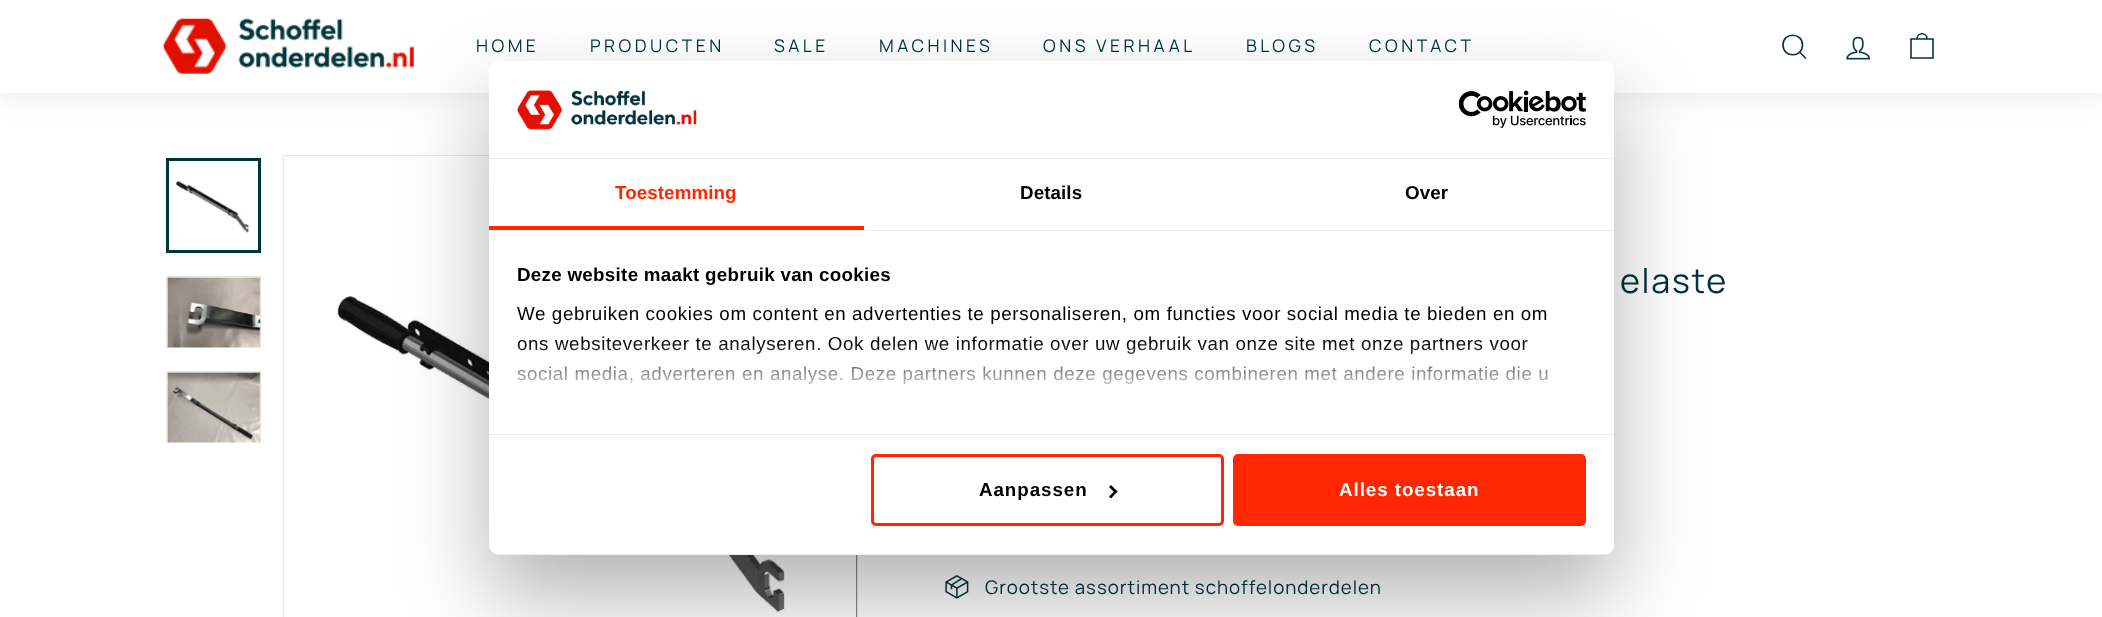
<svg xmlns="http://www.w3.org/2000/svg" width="2102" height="617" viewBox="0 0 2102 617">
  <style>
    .t1 { font: 200 17.5px Manrope; letter-spacing: 3.5px; fill: #00343c; }
    .t2 { font: 200 34px Manrope; letter-spacing: 1.75px; fill: #00343c; }
    .t3 { font: 200 18.75px Manrope; letter-spacing: 0.95px; fill: #00343c; }
    .t4 { font: bold 18.75px Liberation Sans; letter-spacing: 0.1px; fill: #ff2600; }
    .t5 { font: bold 18.75px Liberation Sans; letter-spacing: 0.1px; fill: #000; }
    .t6 { font: bold 18.75px Liberation Sans; letter-spacing: 0.3px; fill: #000; }
    .t7 { font: 18.75px Liberation Sans; letter-spacing: 0.62px; fill: #000; }
    .t8 { font: bold 18.75px Liberation Sans; letter-spacing: 0.95px; fill: #000; }
    .t9 { font: bold 18.75px Liberation Sans; letter-spacing: 0.95px; fill: #fff; }
  </style>
  <defs>
    <clipPath id="clip1"><rect x="166" y="276" width="95" height="72"/></clipPath>
    <clipPath id="clip2"><rect x="166" y="371" width="95" height="72"/></clipPath>
    <linearGradient id="g1" gradientUnits="userSpaceOnUse" x1="1039" y1="434" x2="1039" y2="341"><stop offset="0" stop-color="#fff"/><stop offset="0.5" stop-color="#fff" stop-opacity="0.8"/><stop offset="1" stop-color="#fff" stop-opacity="0"/></linearGradient>
    <clipPath id="clip3"><rect x="489" y="61" width="1125" height="494" rx="10"/></clipPath>
  </defs>
  <rect width="100%" height="100%" fill="#fff"/>
  <rect x="0" y="0" width="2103" height="93" fill="#0000001a" filter="blur(15.5px)"/>
  <rect x="0" y="0" width="2102" height="93" fill="#fff"/>
  <image x="163" y="18" width="251" height="56" href="images/1.png"/>
  <text x="476" y="52" class="t1">HOME</text>
  <text x="590" y="52" class="t1">PRODUCTEN</text>
  <text x="774" y="52" class="t1">SALE</text>
  <text x="879" y="52" class="t1">MACHINES</text>
  <text x="1043" y="52" class="t1">ONS VERHAAL</text>
  <text x="1246" y="52" class="t1">BLOGS</text>
  <text x="1369" y="52" class="t1">CONTACT</text>
  <path d="M1802.5 45C1802.5 58 1783 58 1783 45C1783 32 1802.5 32 1802.5 45ZM1806 58.5L1799.5 52" fill="none" stroke="#00343c" stroke-width="1.6"/>
  <image x="1846" y="36" width="24" height="24" href="images/2.png"/>
  <path d="M1917 39C1917 32 1927 32 1927 39M1911 39H1933V58H1911Z" fill="none" stroke="#00343c" stroke-width="1.6"/>
  <image x="169" y="161" width="89" height="89" href="images/3.png"/>
  <rect x="167.5" y="159.5" width="92" height="92" fill="none" stroke="#00343c" stroke-width="3"/>
  <g clip-path="url(#clip1)">
    <rect x="166.5" y="276.5" width="94" height="72" fill="none" stroke="#e8e8e1"/>
  </g>
  <image x="167" y="277" width="94" height="71" href="images/4.png"/>
  <g clip-path="url(#clip2)">
    <rect x="166.5" y="371.5" width="94" height="72" fill="none" stroke="#e8e8e1"/>
  </g>
  <image x="167" y="372" width="94" height="71" href="images/5.png"/>
  <rect x="283.5" y="155.5" width="574" height="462" fill="none" stroke="#e8e8e1"/>
  <image x="336" y="296" width="449" height="318" href="images/6.png"/>
  <image x="856" y="555" width="1" height="62" href="images/7.png"/>
  <text x="1620" y="293" class="t2">elaste</text>
  <image x="945" y="575" width="24" height="24" href="images/8.png"/>
  <text x="985" y="594" class="t3">Grootste assortiment schoffelonderdelen</text>
  <rect x="489" y="101" width="1125" height="494" rx="10" fill="#0000004d" filter="blur(42.5px)"/>
  <rect x="489" y="61" width="1125" height="494" rx="10" fill="#fff"/>
  <rect x="489" y="158" width="1125" height="1" fill="#eee"/>
  <image x="517" y="90" width="180" height="40" href="images/9.png"/>
  <image x="1459" y="90" width="127" height="38" href="images/10.png"/>
  <rect x="489" y="230" width="1125" height="1" fill="#eee"/>
  <rect x="489" y="226" width="375" height="4" fill="#ff2600"/>
  <text x="615" y="199" class="t4">Toestemming</text>
  <text x="1020" y="199" class="t5">Details</text>
  <text x="1405" y="199" class="t5">Over</text>
  <rect x="489" y="434" width="1125" height="1" fill="#eee"/>
  <text x="517" y="281" class="t6">Deze website maakt gebruik van cookies</text>
  <text x="517" y="320" class="t7">We gebruiken cookies om content en advertenties te personaliseren, om functies voor social media te bieden en om</text>
  <text x="517" y="350" class="t7">ons websiteverkeer te analyseren. Ook delen we informatie over uw gebruik van onze site met onze partners voor</text>
  <text x="517" y="380" class="t7">social media, adverteren en analyse. Deze partners kunnen deze gegevens combineren met andere informatie die u</text>
  <rect x="517" y="342" width="1031" height="42" fill="url(#g1)"/>
  <g clip-path="url(#clip3)">
    <rect x="489" y="554" width="1125" height="1" fill="#eee"/>
  </g>
  <rect x="872.5" y="455.5" width="350" height="69" rx="3.5" fill="none" stroke="#ff2600" stroke-width="3"/>
  <text x="979" y="496" class="t8">Aanpassen</text>
  <path d="M1111 485L1117.5 491.5L1115.5 493.5L1109 487Z" fill="#000"/>
  <path d="M1115.5 490L1117.5 491.5L1111 498.5L1109 496.5Z" fill="#000"/>
  <rect x="1234.5" y="455.5" width="350" height="69" rx="3.5" fill="#ff2600" stroke="#ff2600" stroke-width="3"/>
  <text x="1339" y="496" class="t9">Alles toestaan</text>
</svg>
